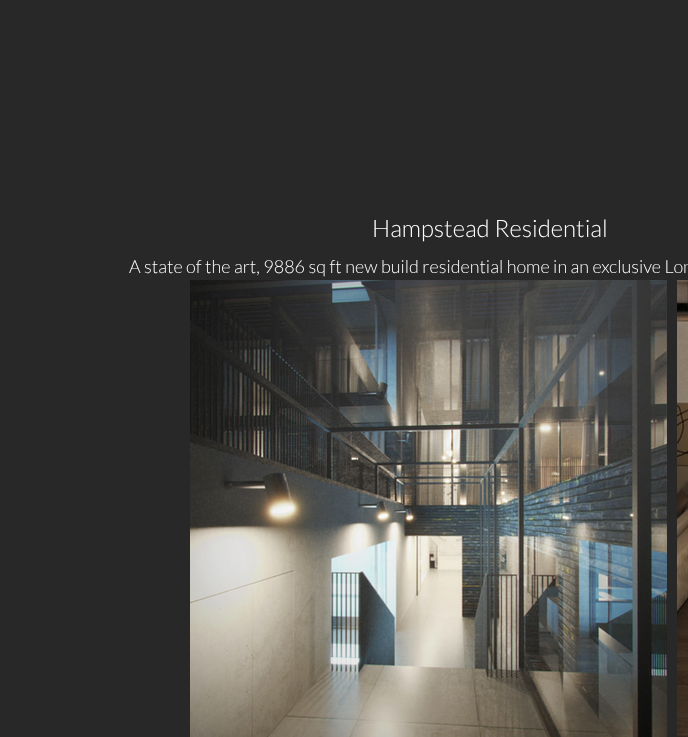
<svg xmlns="http://www.w3.org/2000/svg" width="688" height="737" viewBox="0 0 688 737">
  <style>
    .t1 { font: 300 24px Lato; fill: #fff; }
    .t2 { font: 300 18px Lato; fill: #fff; }
  </style>
  <rect width="100%" height="100%" fill="#282828"/>
  <text x="372" y="237" class="t1">Hampstead Residential</text>
  <text x="129" y="273" class="t2">A state of the art, 9886 sq ft new build residential home in an exclusive Lon</text>
  <image x="190" y="280" width="477" height="457" href="images/1.png"/>
  <image x="677" y="280" width="11" height="457" href="images/2.png"/>
</svg>
